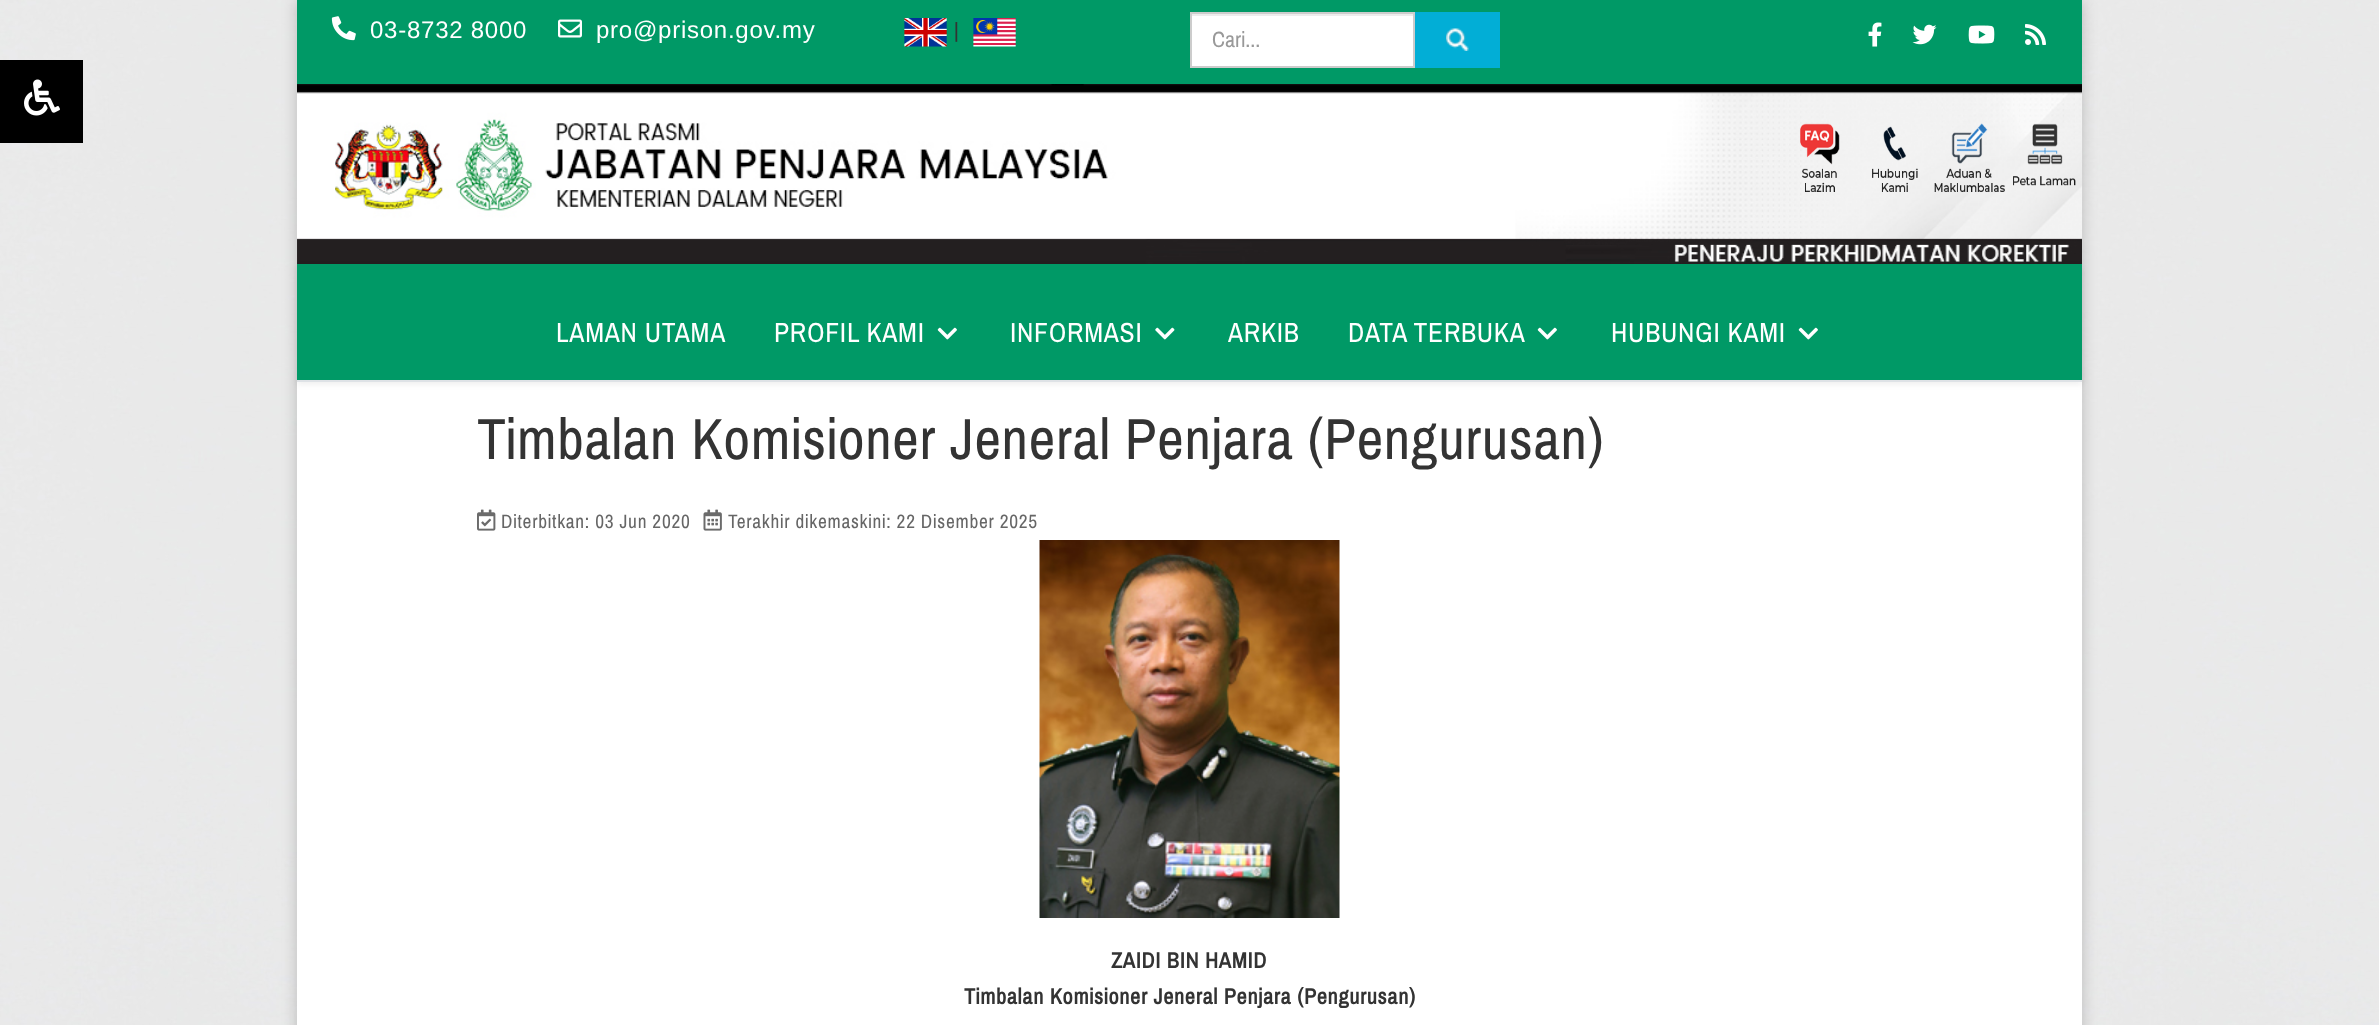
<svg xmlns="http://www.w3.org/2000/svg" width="2379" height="1025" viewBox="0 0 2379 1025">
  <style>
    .t1 { font: 24px Liberation Sans; letter-spacing: 0.75px; fill: #fff; }
    .t2 { font: 24px Pragati Narrow; letter-spacing: 0.75px; fill: #333; }
    .t3 { font: 24px Pragati Narrow; fill: #999; }
    .t4 { font: 30px Pragati Narrow; letter-spacing: 0.75px; fill: #fff; }
    .t5 { font: 63px Pragati Narrow; letter-spacing: 0.75px; fill: #333; }
    .t6 { font: 21px Pragati Narrow; letter-spacing: 0.75px; fill: #666; }
    .t7 { font: bold 24px Pragati Narrow; letter-spacing: 0.75px; fill: #333; }
  </style>
  <rect width="100%" height="100%" fill="#fff"/>
  <image x="0" y="0" width="2379" height="1025" href="images/1.png"/>
  <rect x="297" y="0" width="1785" height="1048" fill="#00000033" filter="blur(7.5px)"/>
  <rect x="297" y="382" width="1785" height="643" fill="#fff"/>
  <rect x="297" y="0" width="1785" height="84" fill="#096"/>
  <image x="331" y="16" width="25" height="25" href="images/2.png"/>
  <text x="370" y="38" class="t1">03-8732 8000</text>
  <image x="558" y="19" width="24" height="19" href="images/3.png"/>
  <text x="596" y="38" class="t1">pro@prison.gov.my</text>
  <image x="1868" y="22" width="14" height="25" href="images/4.png"/>
  <image x="1912" y="24" width="25" height="21" href="images/5.png"/>
  <image x="1968" y="25" width="27" height="19" href="images/6.png"/>
  <image x="2025" y="24" width="21" height="21" href="images/7.png"/>
  <rect x="0" y="60" width="83" height="83" fill="#000"/>
  <image x="24" y="79" width="36" height="37" href="images/8.png"/>
  <image x="904" y="18" width="43" height="29" href="images/9.png"/>
  <text x="954" y="38" class="t2">|</text>
  <image x="973" y="18" width="43" height="29" href="images/10.png"/>
  <rect x="1192" y="16" width="221" height="50" fill="#fff"/>
  <rect x="1191" y="14" width="222" height="2" fill="#ececec"/>
  <rect x="1191" y="13" width="223" height="54" fill="none" stroke="#ccc" stroke-width="2"/>
  <text x="1212" y="47" class="t3">Cari...</text>
  <rect x="1415" y="12" width="85" height="56" fill="#02aed6"/>
  <image x="1446" y="28" width="23" height="23" href="images/11.png"/>
  <image x="297" y="84" width="1785" height="180" href="images/12.png"/>
  <image x="1800" y="123" width="40" height="69" href="images/13.png"/>
  <image x="1872" y="126" width="46" height="66" href="images/14.png"/>
  <image x="1934" y="123" width="71" height="69" href="images/15.png"/>
  <image x="2013" y="123" width="63" height="63" href="images/16.png"/>
  <rect x="297" y="267" width="1785" height="117" fill="#00000012" filter="blur(3px)"/>
  <rect x="297" y="380" width="1785" height="2" fill="#dee2e6"/>
  <rect x="297" y="264" width="1785" height="116" fill="#096"/>
  <text x="556" y="342" class="t4">LAMAN UTAMA</text>
  <text x="774" y="342" class="t4">PROFIL KAMI</text>
  <image x="937" y="327" width="20" height="13" href="images/17.png"/>
  <text x="1010" y="342" class="t4">INFORMASI</text>
  <image x="1155" y="327" width="20" height="13" href="images/18.png"/>
  <text x="1228" y="342" class="t4">ARKIB</text>
  <text x="1348" y="342" class="t4">DATA TERBUKA</text>
  <image x="1537" y="327" width="20" height="13" href="images/17.png"/>
  <text x="1611" y="342" class="t4">HUBUNGI KAMI</text>
  <image x="1798" y="327" width="20" height="13" href="images/17.png"/>
  <text x="477" y="459" class="t5">Timbalan Komisioner Jeneral Penjara (Pengurusan)</text>
  <image x="477" y="509" width="19" height="22" href="images/19.png"/>
  <text x="501" y="528" class="t6">Diterbitkan: 03 Jun 2020</text>
  <image x="703" y="509" width="19" height="22" href="images/20.png"/>
  <text x="728" y="528" class="t6">Terakhir dikemaskini: 22 Disember 2025</text>
  <image x="1039" y="540" width="301" height="378" href="images/21.png"/>
  <text x="1111" y="968" class="t7">ZAIDI BIN HAMID</text>
  <text x="964" y="1004" class="t7">Timbalan Komisioner Jeneral Penjara (Pengurusan)</text>
</svg>
